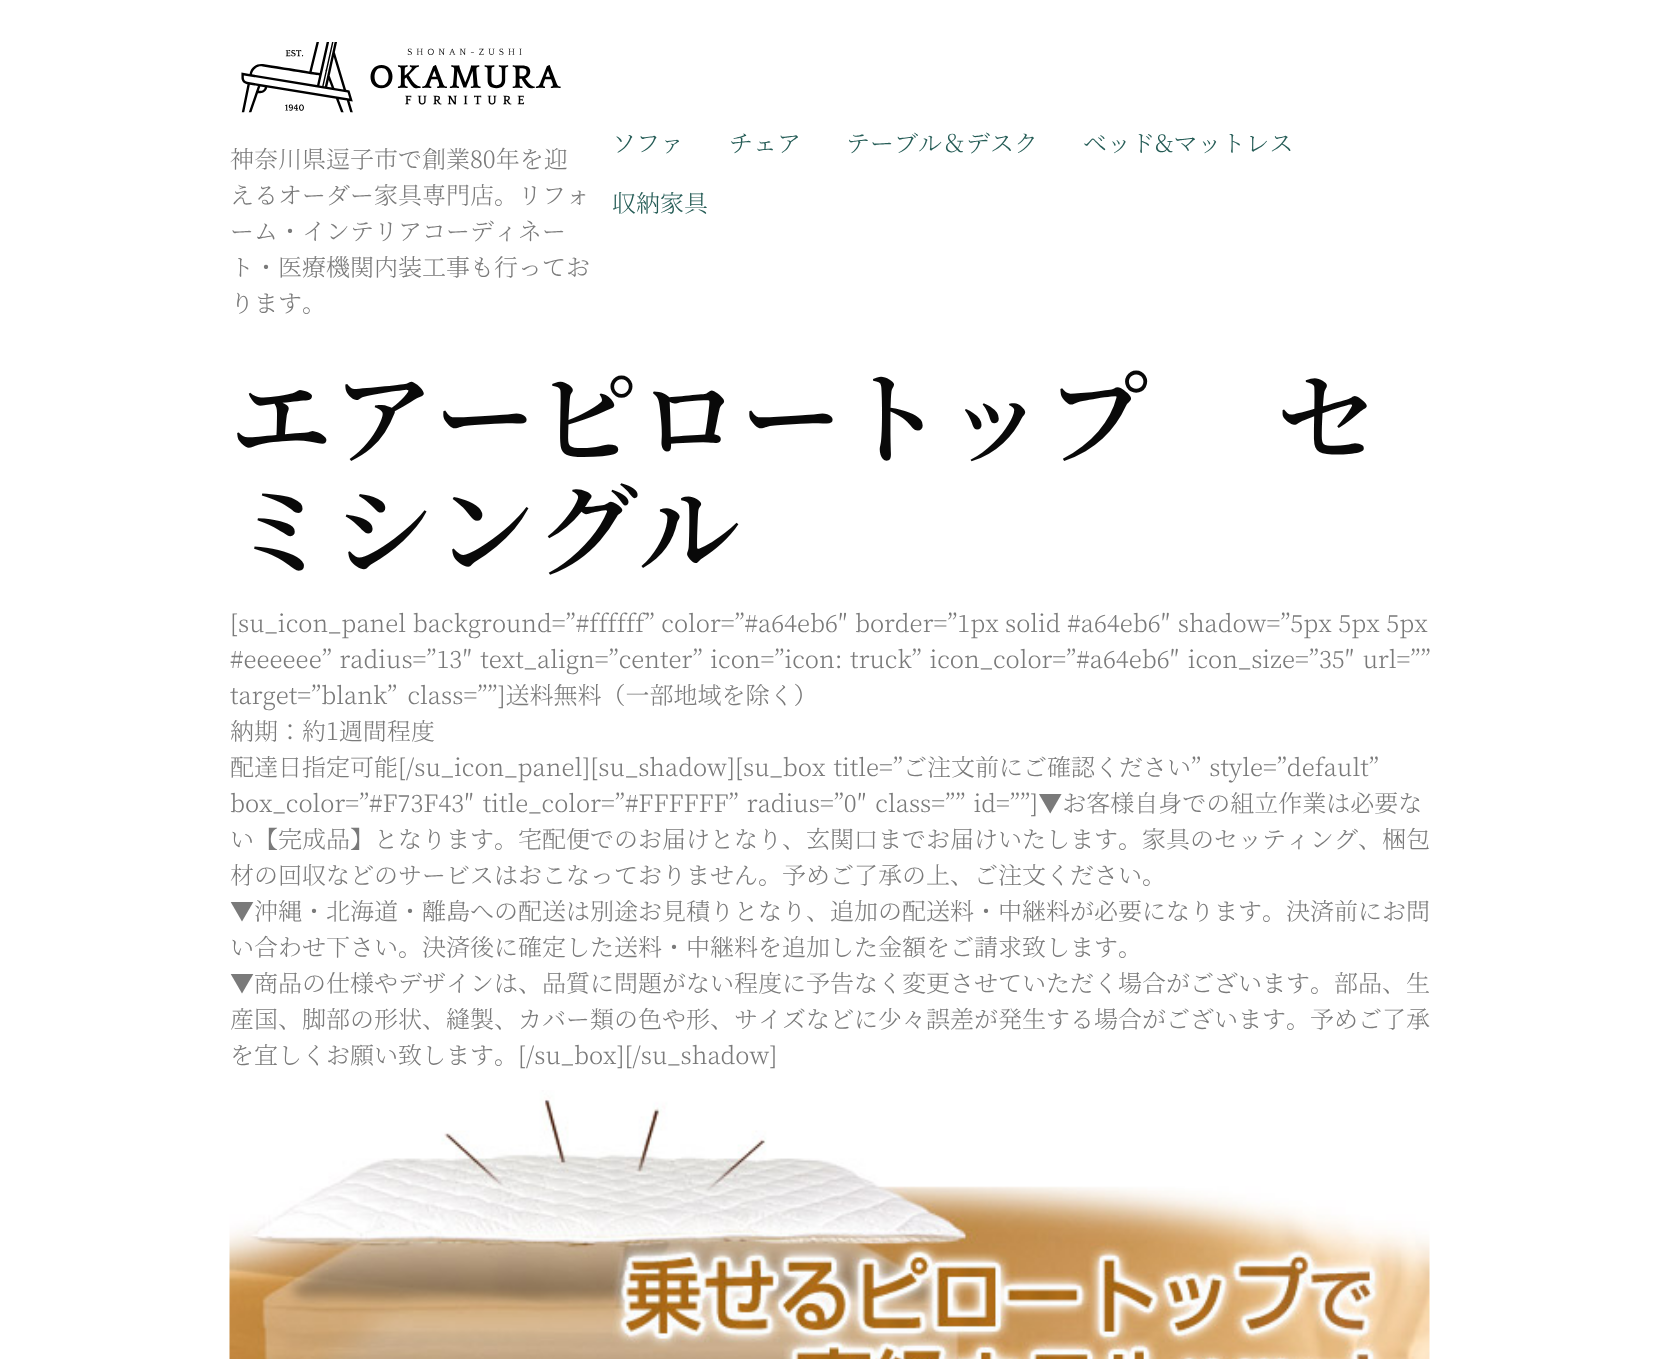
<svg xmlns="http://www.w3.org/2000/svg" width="1658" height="1359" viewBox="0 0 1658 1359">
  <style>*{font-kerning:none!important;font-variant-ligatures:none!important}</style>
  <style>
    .t1 { font: 300 24px Noto Serif JP; fill: #7a7a7a; }
    .t2 { font: 300 24px Noto Serif JP; fill: #255c56; }
    .t3 { font: 600 102px Noto Serif JP; fill: #090909; }
  </style>
  <rect width="100%" height="100%" fill="#fff"/>
  <image x="241" y="42" width="320" height="71" href="images/1.png"/>
  <text x="230" y="168" class="t1">神奈川県逗子市で創業80年を迎</text>
  <text x="230" y="204" class="t1">えるオーダー家具専門店。リフォ</text>
  <text x="230" y="240" class="t1">ーム・インテリアコーディネー</text>
  <text x="230" y="276" class="t1">ト・医療機関内装工事も行ってお</text>
  <text x="230" y="312" class="t1">ります。</text>
  <text x="612" y="152" class="t2">ソファ</text>
  <text x="729" y="152" class="t2">チェア</text>
  <text x="846" y="152" class="t2">テーブル＆デスク</text>
  <text x="1083" y="152" class="t2">ベッド&amp;マットレス</text>
  <text x="612" y="212" class="t2">収納家具</text>
  <text x="230" y="456" class="t3">エアーピロートップ　 セ</text>
  <text x="230" y="568" class="t3">ミシングル</text>
  <text x="230" y="632" word-spacing="0.5" class="t1">[su_icon_panel background=”#ffffff” color=”#a64eb6″ border=”1px</text>
  <text x="1005" y="632" word-spacing="0.5" class="t1">solid #a64eb6″ shadow=”5px 5px 5px</text>
  <text x="230" y="668" word-spacing="1.5" class="t1">#eeeeee” radius=”13″ text_align=”center” icon=”icon: truck” icon_color=”#a64eb6″ icon_size=”35″ url=””</text>
  <text x="230" y="704" word-spacing="4" class="t1">target=”blank” class=””]送料無料（一部地域を除く）</text>
  <text x="230" y="740" class="t1">納期：約1週間程度</text>
  <text x="230" y="776" word-spacing="2" class="t1">配達日指定可能[/su_icon_panel][su_shadow][su_box title=”ご注文前にご確認ください” style=”default”</text>
  <text x="230" y="812" word-spacing="2" class="t1">box_color=”#F73F43″ title_color=”#FFFFFF” radius=”0″ class=”” id=””]▼お客様自身での組立作業は必要な</text>
  <text x="230" y="848" class="t1">い【完成品】となります。宅配便でのお届けとなり、玄関口までお届けいたします。家具のセッテ</text>
  <text x="1286" y="848" class="t1">ィング、梱包</text>
  <text x="230" y="884" class="t1">材の回収などのサービスはおこなっておりません。予めご了承の上、ご注文ください。</text>
  <text x="230" y="920" class="t1">▼沖縄・北海道・離島への配送は別途お見積りとなり、追加の配送料・中継料が必要になります。決済前にお問</text>
  <text x="230" y="956" class="t1">い合わせ下さい。決済後に確定した送料・中継料を追加した金額をご請求致します。</text>
  <text x="230" y="992" class="t1">▼商品の仕様やデザインは、品質に問題がない程度に予告なく変更させていただく場合がございます。部品、生</text>
  <text x="230" y="1028" class="t1">産国、脚部の形状、縫製、カバー類の色や形、サイズなどに少々誤差が発生する場合がございます。予めご了承</text>
  <text x="230" y="1064" class="t1">を宜しくお願い致します。[/su_box][/su_shadow]</text>
  <image x="229" y="1090" width="1201" height="269" href="images/2.png"/>
</svg>
